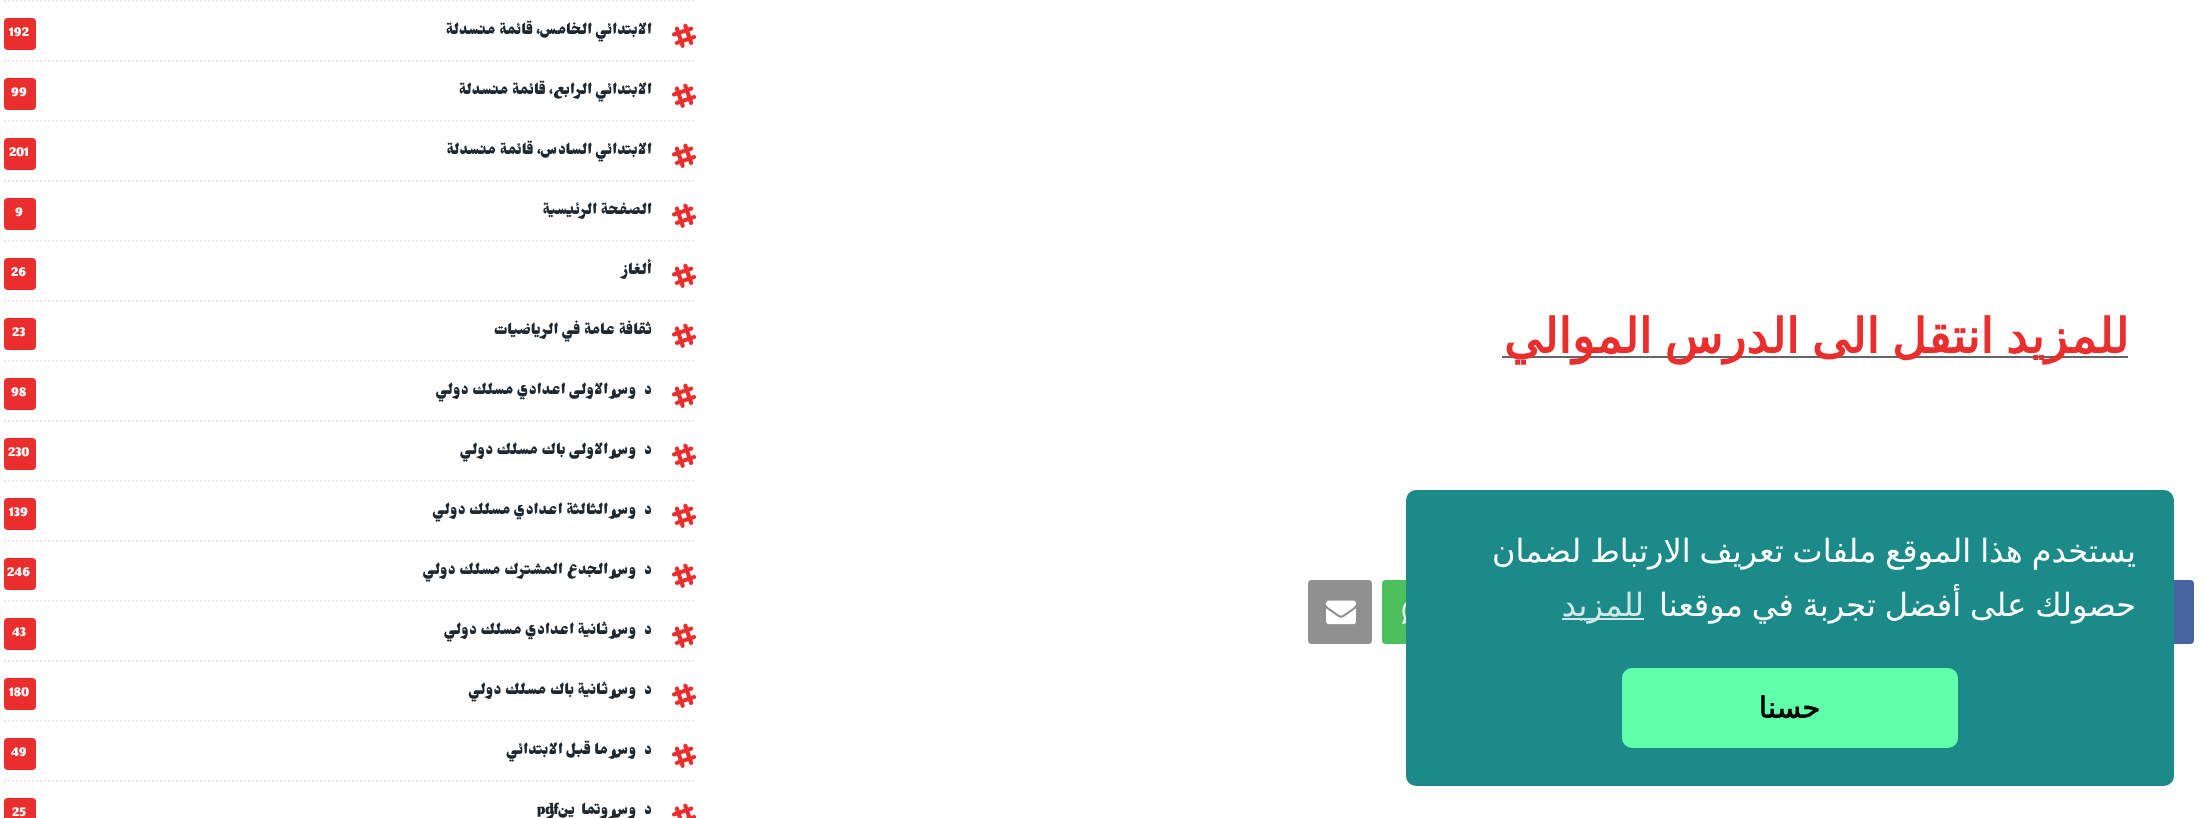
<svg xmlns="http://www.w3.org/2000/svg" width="2205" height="818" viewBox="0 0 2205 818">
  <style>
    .t1 { font: bold 48px DejaVu Sans; direction: rtl; fill: #ea2e2e; }
    .t2 { font: 26px Jomhuria; direction: rtl; fill: #1e2830; }
    .t3 { font: 22px Jomhuria; fill: #fff; }
    .t4 { font: 26px Jomhuria; fill: #1e2830; }
    .t5 { font: 32px DejaVu Sans; direction: rtl; fill: #fff; }
    .t6 { font: 32px DejaVu Sans; direction: rtl; fill: #d2e8e8; }
    .t7 { font: bold 29px DejaVu Sans; direction: rtl; fill: #000; }
  </style>
  <rect width="100%" height="100%" fill="#fff"/>
  <rect x="1502" y="356" width="626" height="2" fill="#656565"/>
  <text x="2129" y="353" word-spacing="-3" class="t1">للمزيد انتقل الى الدرس الموالي</text>
  <rect x="1904" y="580" width="290" height="64" rx="4" fill="#3b5999"/>
  <rect x="2174" y="580" width="20" height="64" fill="#ffffff12"/>
  <rect x="1382" y="580" width="64" height="64" rx="4" fill="#4cc05c"/>
  <image x="1402" y="602" width="4" height="23" href="images/1.png"/>
  <rect x="1308" y="580" width="64" height="64" rx="4" fill="#909090"/>
  <image x="1326" y="600" width="30" height="25" href="images/2.png"/>
  <path d="M4 1H696" fill="none" stroke="#eaeaea" stroke-width="2" stroke-dasharray="2 2"/>
  <image x="672" y="23" width="24" height="25" href="images/3.png"/>
  <text x="652" y="34" class="t2">الابتدائي الخامس، قائمة منسدلة</text>
  <rect x="4" y="18" width="32" height="32" rx="4" fill="#ea2e2e"/>
  <text x="9" y="36" class="t3">192</text>
  <path d="M4 61H696" fill="none" stroke="#eaeaea" stroke-width="2" stroke-dasharray="2 2"/>
  <image x="672" y="83" width="24" height="25" href="images/3.png"/>
  <text x="652" y="94" class="t2">الابتدائي الرابع، قائمة منسدلة</text>
  <rect x="4" y="78" width="32" height="32" rx="4" fill="#ea2e2e"/>
  <text x="11" y="96" class="t3">99</text>
  <path d="M4 121H696" fill="none" stroke="#eaeaea" stroke-width="2" stroke-dasharray="2 2"/>
  <image x="672" y="143" width="24" height="25" href="images/3.png"/>
  <text x="652" y="154" class="t2">الابتدائي السادس، قائمة منسدلة</text>
  <rect x="4" y="138" width="32" height="32" rx="4" fill="#ea2e2e"/>
  <text x="9" y="156" class="t3">201</text>
  <path d="M4 181H696" fill="none" stroke="#eaeaea" stroke-width="2" stroke-dasharray="2 2"/>
  <image x="672" y="203" width="24" height="25" href="images/3.png"/>
  <text x="652" y="214" class="t2">الصفحة الرئيسية</text>
  <rect x="4" y="198" width="32" height="32" rx="4" fill="#ea2e2e"/>
  <text x="15" y="216" class="t3">9</text>
  <path d="M4 241H696" fill="none" stroke="#eaeaea" stroke-width="2" stroke-dasharray="2 2"/>
  <image x="672" y="263" width="24" height="25" href="images/3.png"/>
  <text x="652" y="274" class="t2">ألغاز</text>
  <rect x="4" y="258" width="32" height="32" rx="4" fill="#ea2e2e"/>
  <text x="11" y="276" class="t3">26</text>
  <path d="M4 301H696" fill="none" stroke="#eaeaea" stroke-width="2" stroke-dasharray="2 2"/>
  <image x="672" y="323" width="24" height="25" href="images/3.png"/>
  <text x="652" y="334" class="t2">ثقافة عامة في الرياضيات</text>
  <rect x="4" y="318" width="32" height="32" rx="4" fill="#ea2e2e"/>
  <text x="12" y="336" class="t3">23</text>
  <path d="M4 361H696" fill="none" stroke="#eaeaea" stroke-width="2" stroke-dasharray="2 2"/>
  <image x="672" y="383" width="24" height="25" href="images/3.png"/>
  <text x="652" y="394" class="t2">دروس الاولى اعدادي مسلك دولي</text>
  <rect x="4" y="378" width="32" height="32" rx="4" fill="#ea2e2e"/>
  <text x="11" y="396" class="t3">98</text>
  <path d="M4 421H696" fill="none" stroke="#eaeaea" stroke-width="2" stroke-dasharray="2 2"/>
  <image x="672" y="443" width="24" height="25" href="images/3.png"/>
  <text x="652" y="454" class="t2">دروس الاولى باك مسلك دولي</text>
  <rect x="4" y="438" width="32" height="32" rx="4" fill="#ea2e2e"/>
  <text x="8" y="456" class="t3">230</text>
  <path d="M4 481H696" fill="none" stroke="#eaeaea" stroke-width="2" stroke-dasharray="2 2"/>
  <image x="672" y="503" width="24" height="25" href="images/3.png"/>
  <text x="652" y="514" class="t2">دروس الثالثة اعدادي مسلك دولي</text>
  <rect x="4" y="498" width="32" height="32" rx="4" fill="#ea2e2e"/>
  <text x="9" y="516" class="t3">139</text>
  <path d="M4 541H696" fill="none" stroke="#eaeaea" stroke-width="2" stroke-dasharray="2 2"/>
  <image x="672" y="563" width="24" height="25" href="images/3.png"/>
  <text x="652" y="574" class="t2">دروس الجدع المشترك مسلك دولي</text>
  <rect x="4" y="558" width="32" height="32" rx="4" fill="#ea2e2e"/>
  <text x="7" y="576" class="t3">246</text>
  <path d="M4 601H696" fill="none" stroke="#eaeaea" stroke-width="2" stroke-dasharray="2 2"/>
  <image x="672" y="623" width="24" height="25" href="images/3.png"/>
  <text x="652" y="634" class="t2">دروس ثانية اعدادي مسلك دولي</text>
  <rect x="4" y="618" width="32" height="32" rx="4" fill="#ea2e2e"/>
  <text x="12" y="636" class="t3">43</text>
  <path d="M4 661H696" fill="none" stroke="#eaeaea" stroke-width="2" stroke-dasharray="2 2"/>
  <image x="672" y="683" width="24" height="25" href="images/3.png"/>
  <text x="652" y="694" class="t2">دروس ثانية باك مسلك دولي</text>
  <rect x="4" y="678" width="32" height="32" rx="4" fill="#ea2e2e"/>
  <text x="9" y="696" class="t3">180</text>
  <path d="M4 721H696" fill="none" stroke="#eaeaea" stroke-width="2" stroke-dasharray="2 2"/>
  <image x="672" y="743" width="24" height="25" href="images/3.png"/>
  <text x="652" y="754" class="t2">دروس ما قبل الابتدائي</text>
  <rect x="4" y="738" width="32" height="32" rx="4" fill="#ea2e2e"/>
  <text x="11" y="756" class="t3">49</text>
  <path d="M4 781H696" fill="none" stroke="#eaeaea" stroke-width="2" stroke-dasharray="2 2"/>
  <image x="672" y="803" width="24" height="15" href="images/4.png"/>
  <text x="537" y="814" class="t4">pdf</text>
  <text x="652" y="814" class="t2">دروس وتمارين</text>
  <rect x="4" y="798" width="32" height="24" rx="4" fill="#ea2e2e"/>
  <text x="12" y="816" class="t3">25</text>
  <rect x="1406" y="490" width="768" height="296" rx="10" fill="#1d8a8a"/>
  <text x="2136" y="562" word-spacing="-1.25" class="t5">يستخدم هذا الموقع ملفات تعريف الارتباط لضمان</text>
  <text x="2136" y="616" word-spacing="-1.25" class="t5">حصولك على أفضل تجربة في موقعنا</text>
  <rect x="1562" y="618" width="82" height="2" fill="#d2e8e8"/>
  <text x="1644" y="616" class="t6">للمزيد</text>
  <rect x="1622" y="668" width="336" height="80" rx="10" fill="#62ffaa"/>
  <text x="1820" y="718" class="t7">حسنا</text>
</svg>
